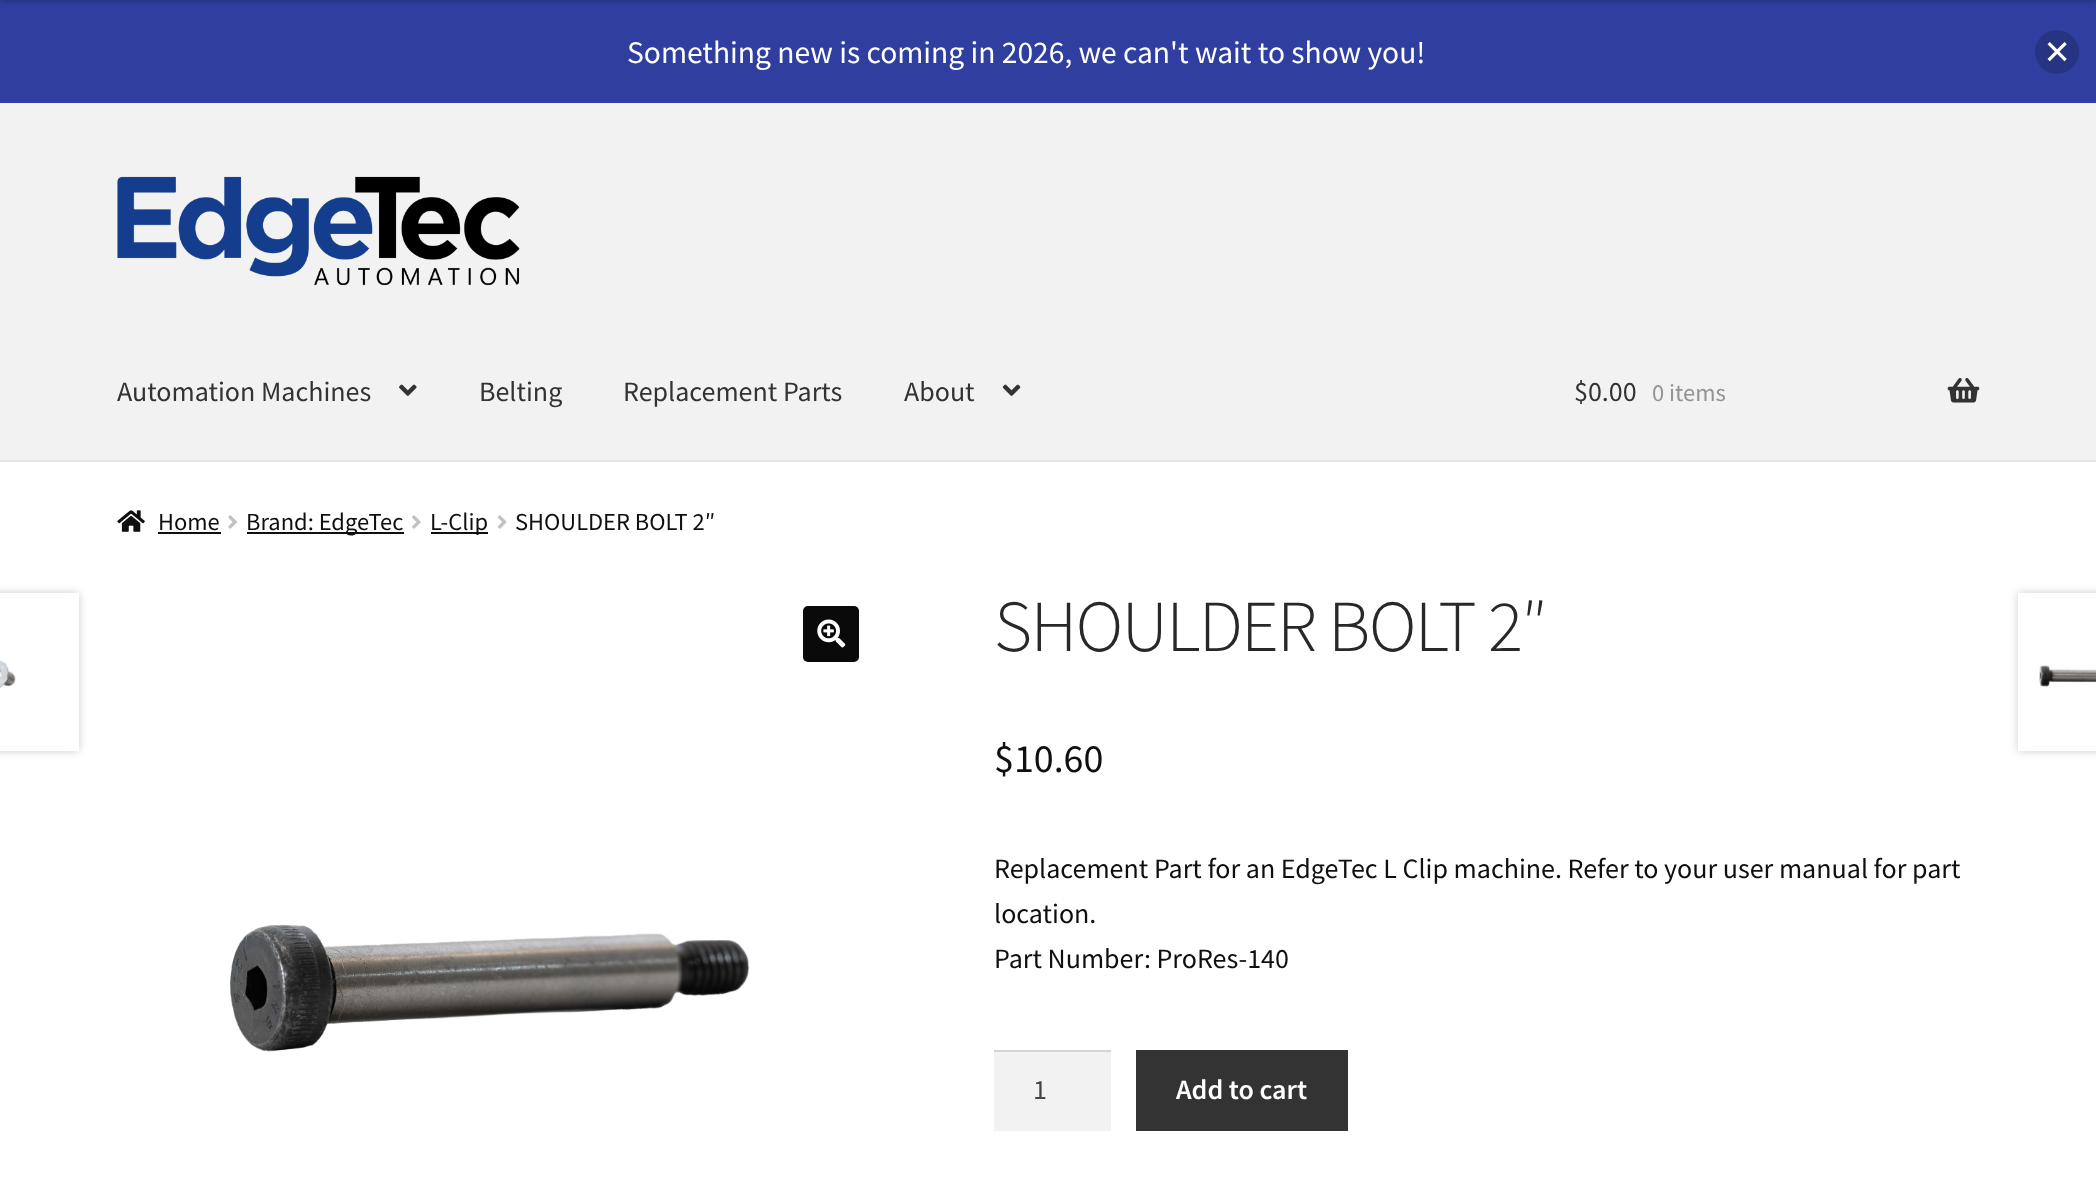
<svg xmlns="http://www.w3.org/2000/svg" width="2096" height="1184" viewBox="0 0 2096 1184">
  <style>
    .t1 { font: 31.5px Source Sans Pro; fill: #fff; }
    .t2 { font: 28px Source Sans Pro; fill: #333; }
    .t3 { font: 24.5px Source Sans Pro; fill: #939393; }
    .t4 { font: 24.5px Source Sans Pro; fill: #0f0f0f; }
    .t5 { font: 300 73.25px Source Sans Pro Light; letter-spacing: -1.75px; fill: #282828; }
    .t6 { font: 40px Source Sans Pro; fill: #0f0f0f; }
    .t7 { font: 28px Source Sans Pro; fill: #0f0f0f; }
    .t8 { font: 28px Source Sans Pro; fill: #43454b; }
    .t9 { font: 600 28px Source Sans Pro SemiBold; fill: #fff; }
  </style>
  <rect width="100%" height="100%" fill="#fff"/>
  <rect x="0" y="0" width="2096" height="103" fill="#303f9f"/>
  <text x="627" y="63" class="t1">Something new is coming in 2026, we can't wait to show you!</text>
  <circle cx="2057" cy="52" r="22" fill="#273482"/>
  <image x="2047" y="42" width="20" height="20" href="images/1.png"/>
  <rect x="0" y="-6" width="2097" height="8" fill="#00000033" filter="blur(2px)"/>
  <rect x="0" y="103" width="2096" height="357" fill="#f2f2f2"/>
  <rect x="0" y="460" width="2096" height="2" fill="#e3e3e3"/>
  <image x="117" y="176" width="403" height="110" href="images/2.png"/>
  <text x="117" y="401" class="t2">Automation Machines</text>
  <image x="399" y="384" width="18" height="12" href="images/3.png"/>
  <text x="479" y="401" class="t2">Belting</text>
  <text x="623" y="401" class="t2">Replacement Parts</text>
  <text x="904" y="401" class="t2">About</text>
  <image x="1002" y="384" width="19" height="12" href="images/4.png"/>
  <text x="1574" y="401" class="t2">$0.00</text>
  <text x="1652" y="401" class="t3">0 items</text>
  <image x="1947" y="378" width="33" height="25" href="images/5.png"/>
  <image x="117" y="510" width="28" height="22" href="images/6.png"/>
  <text x="158" y="530" class="t4">Home</text>
  <rect x="158" y="532" width="63" height="2" fill="#0f0f0f"/>
  <image x="228" y="515" width="9" height="14" href="images/7.png"/>
  <rect x="247" y="532" width="157" height="2" fill="#0f0f0f"/>
  <text x="246" y="530" class="t4">Brand: EdgeTec</text>
  <image x="412" y="515" width="9" height="14" href="images/8.png"/>
  <rect x="431" y="532" width="57" height="2" fill="#0f0f0f"/>
  <text x="430" y="530" class="t4">L-Clip</text>
  <image x="497" y="515" width="10" height="14" href="images/9.png"/>
  <text x="515" y="530" class="t4">SHOULDER BOLT 2″</text>
  <rect x="-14" y="593" width="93" height="158" fill="#00000033" filter="blur(4.5px)"/>
  <rect x="0" y="593" width="79" height="158" fill="#fff"/>
  <image x="0" y="660" width="16" height="28" href="images/10.png"/>
  <rect x="2018" y="593" width="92" height="158" fill="#00000033" filter="blur(4.5px)"/>
  <rect x="2018" y="593" width="78" height="158" fill="#fff"/>
  <image x="2039" y="665" width="57" height="22" href="images/11.png"/>
  <rect x="803" y="606" width="56" height="56" rx="5" fill="#0a0a0a"/>
  <image x="817" y="619" width="29" height="29" href="images/12.png"/>
  <image x="230" y="924" width="520" height="128" href="images/13.png"/>
  <text x="994" y="651" class="t5">SHOULDER BOLT 2″</text>
  <text x="994" y="772" class="t6">$10.60</text>
  <text x="994" y="878" class="t7">Replacement Part for an EdgeTec L Clip machine. Refer to your user manual for part</text>
  <text x="994" y="923" class="t7">location.</text>
  <text x="994" y="968" class="t7">Part Number: ProRes-140</text>
  <rect x="994" y="1052" width="117" height="79" fill="#f2f2f2"/>
  <rect x="994" y="1050" width="117" height="2" fill="#d4d4d4"/>
  <text x="1033" y="1099" class="t8">1</text>
  <rect x="1136" y="1050" width="212" height="81" fill="#333"/>
  <text x="1176" y="1099" class="t9">Add to cart</text>
</svg>
